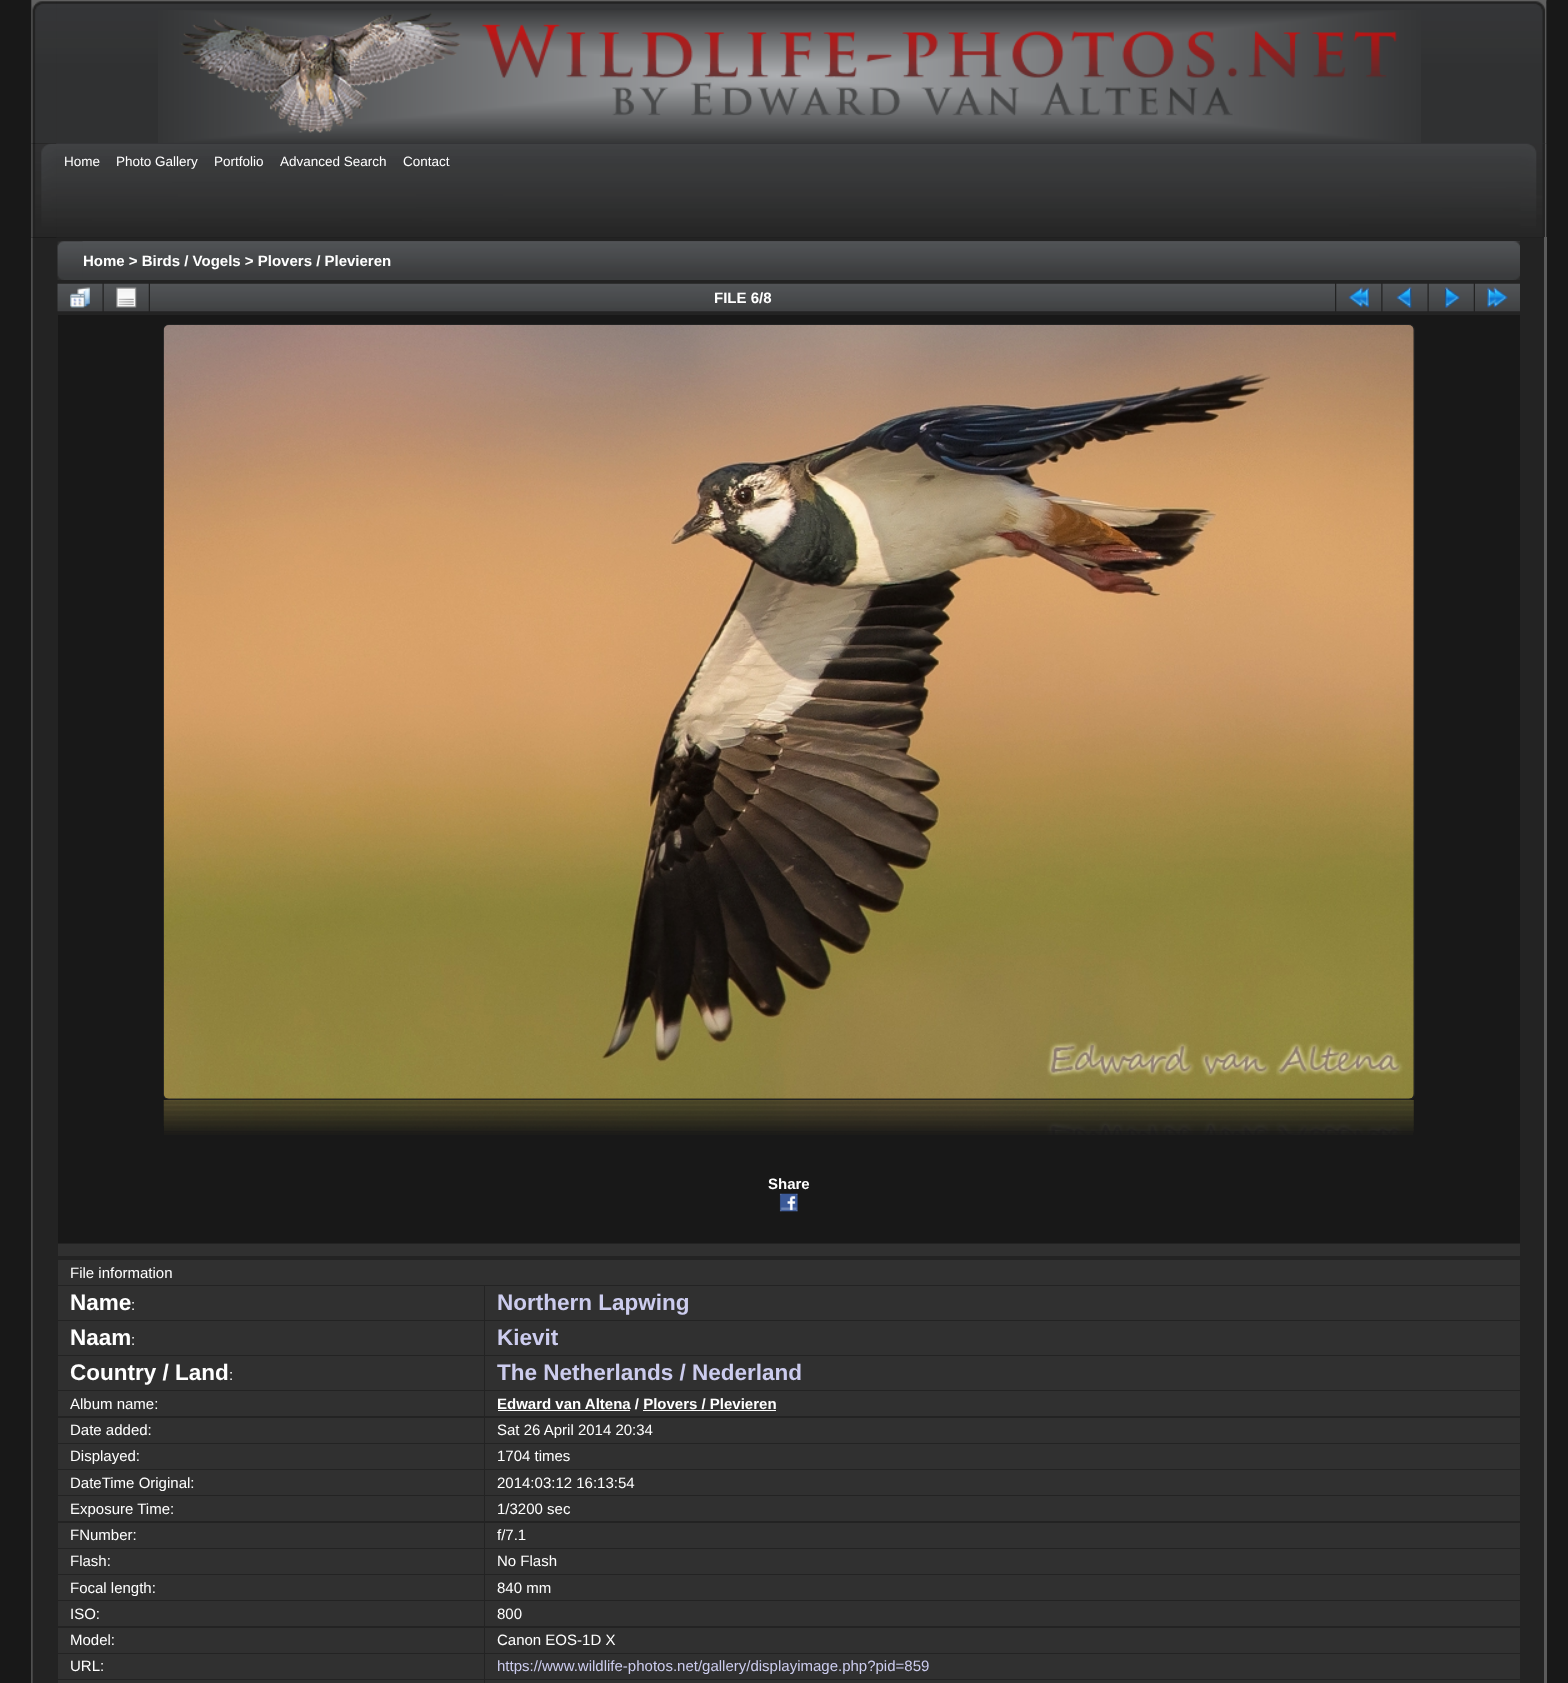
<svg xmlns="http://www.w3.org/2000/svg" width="1568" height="1683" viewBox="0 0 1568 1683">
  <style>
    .t1 { font: 13.5px Liberation Sans; fill: #fff; }
    .t2 { font: bold 15px Liberation Sans; fill: #fff; }
    .t3 { font: 15px Liberation Sans; fill: #fff; }
    .t4 { font: bold 22.5px Liberation Sans; fill: #fff; }
    .t5 { font: bold 22.5px Liberation Sans; fill: #cce; }
    .t6 { font: 15px Liberation Sans; fill: #cce; }
  </style>
  <rect width="100%" height="100%" fill="#181818"/>
  <rect x="31" y="0" width="1515" height="144" fill="#010101"/>
  <image x="31" y="0" width="1516" height="144" href="images/1.png"/>
  <image x="56" y="0" width="1491" height="144" href="images/2.png"/>
  <image x="158" y="10" width="1263" height="133" href="images/3.png"/>
  <rect x="31" y="144" width="1513" height="94" fill="#010101"/>
  <image x="31" y="143" width="1516" height="95" href="images/4.png"/>
  <image x="56" y="143" width="1491" height="95" href="images/5.png"/>
  <text x="64" y="166" class="t1">Home</text>
  <text x="116" y="166" class="t1">Photo Gallery</text>
  <text x="214" y="166" class="t1">Portfolio</text>
  <text x="280" y="166" class="t1">Advanced Search</text>
  <text x="403" y="166" class="t1">Contact</text>
  <image x="31" y="237" width="1513" height="1446" href="images/6.png"/>
  <rect x="1544" y="237" width="3" height="1446" fill="#5b5b5b"/>
  <image x="57" y="241" width="1463" height="39" href="images/7.png"/>
  <image x="82" y="241" width="1438" height="39" href="images/8.png"/>
  <text x="83" y="266" class="t2">Home &gt; Birds / Vogels &gt; Plovers / Plevieren</text>
  <image x="57" y="283" width="46" height="29" href="images/9.png"/>
  <image x="70" y="287" width="20" height="21" href="images/10.png"/>
  <image x="103" y="283" width="46" height="29" href="images/11.png"/>
  <image x="116" y="287" width="21" height="21" href="images/12.png"/>
  <image x="150" y="283" width="1185" height="29" href="images/13.png"/>
  <text x="714" y="303" class="t2">FILE 6/8</text>
  <image x="1336" y="283" width="46" height="29" href="images/14.png"/>
  <image x="1348" y="287" width="21" height="21" href="images/15.png"/>
  <image x="1382" y="283" width="46" height="29" href="images/9.png"/>
  <image x="1396" y="287" width="16" height="21" href="images/16.png"/>
  <image x="1428" y="283" width="46" height="29" href="images/11.png"/>
  <image x="1444" y="287" width="17" height="21" href="images/17.png"/>
  <image x="1475" y="283" width="45" height="29" href="images/18.png"/>
  <image x="1487" y="287" width="21" height="21" href="images/19.png"/>
  <rect x="58" y="315" width="1462" height="928" fill="#181818"/>
  <rect x="163.5" y="324.5" width="1251" height="775" rx="5.5" fill="none" stroke="#232323"/>
  <image x="163" y="325" width="1251" height="774" href="images/20.png"/>
  <image x="163" y="1100" width="1251" height="2" href="images/21.png"/>
  <image x="163" y="1101" width="1251" height="2" href="images/22.png"/>
  <image x="163" y="1102" width="1251" height="2" href="images/23.png"/>
  <image x="163" y="1103" width="1251" height="2" href="images/24.png"/>
  <image x="163" y="1105" width="1251" height="2" href="images/25.png"/>
  <image x="163" y="1106" width="1251" height="2" href="images/26.png"/>
  <image x="163" y="1107" width="1251" height="2" href="images/27.png"/>
  <image x="163" y="1108" width="1251" height="2" href="images/28.png"/>
  <image x="163" y="1110" width="1251" height="2" href="images/29.png"/>
  <image x="163" y="1111" width="1251" height="2" href="images/30.png"/>
  <image x="163" y="1112" width="1251" height="2" href="images/31.png"/>
  <image x="163" y="1113" width="1251" height="2" href="images/32.png"/>
  <image x="163" y="1115" width="1251" height="2" href="images/33.png"/>
  <image x="163" y="1116" width="1251" height="2" href="images/34.png"/>
  <image x="163" y="1117" width="1251" height="2" href="images/35.png"/>
  <image x="163" y="1118" width="1251" height="2" href="images/36.png"/>
  <image x="163" y="1120" width="1251" height="2" href="images/37.png"/>
  <image x="163" y="1121" width="1251" height="2" href="images/38.png"/>
  <image x="163" y="1122" width="1251" height="2" href="images/39.png"/>
  <image x="163" y="1123" width="1251" height="2" href="images/40.png"/>
  <image x="163" y="1125" width="1251" height="2" href="images/41.png"/>
  <image x="164" y="1126" width="1250" height="2" href="images/42.png"/>
  <image x="164" y="1127" width="1250" height="2" href="images/43.png"/>
  <image x="164" y="1128" width="1250" height="2" href="images/44.png"/>
  <image x="164" y="1130" width="1250" height="1" href="images/45.png"/>
  <image x="164" y="1131" width="1250" height="2" href="images/46.png"/>
  <image x="164" y="1132" width="1249" height="2" href="images/47.png"/>
  <image x="164" y="1134" width="1249" height="1" href="images/48.png"/>
  <text x="768" y="1189" class="t2">Share</text>
  <image x="779" y="1193" width="19" height="19" href="images/49.png"/>
  <rect x="58" y="1244" width="1462" height="12" fill="#303030"/>
  <rect x="58" y="1260" width="1462" height="25" fill="#303030"/>
  <text x="70" y="1278" class="t3">File information</text>
  <rect x="58" y="1286" width="426" height="34" fill="#303030"/>
  <text x="70" y="1310" class="t4">Name</text>
  <text x="131" y="1310" class="t3">:</text>
  <rect x="485" y="1286" width="1035" height="34" fill="#303030"/>
  <text x="497" y="1310" class="t5">Northern Lapwing</text>
  <rect x="58" y="1321" width="426" height="34" fill="#303030"/>
  <text x="70" y="1345" class="t4">Naam</text>
  <text x="131" y="1345" class="t3">:</text>
  <rect x="485" y="1321" width="1035" height="34" fill="#303030"/>
  <text x="497" y="1345" class="t5">Kievit</text>
  <rect x="58" y="1356" width="426" height="34" fill="#303030"/>
  <text x="70" y="1380" class="t4">Country / Land</text>
  <text x="229" y="1380" class="t3">:</text>
  <rect x="485" y="1356" width="1035" height="34" fill="#303030"/>
  <text x="497" y="1380" class="t5">The Netherlands / Nederland</text>
  <rect x="58" y="1391" width="426" height="25" fill="#303030"/>
  <text x="70" y="1409" class="t3">Album name:</text>
  <rect x="485" y="1391" width="1035" height="25" fill="#303030"/>
  <text x="497" y="1409" class="t2">Edward van Altena / Plovers / Plevieren</text>
  <rect x="498" y="1410" width="132" height="1" fill="#fff"/>
  <rect x="643" y="1410" width="133" height="1" fill="#fff"/>
  <rect x="58" y="1418" width="426" height="25" fill="#303030"/>
  <text x="70" y="1435" class="t3">Date added:</text>
  <rect x="485" y="1418" width="1035" height="25" fill="#303030"/>
  <text x="497" y="1435" class="t3">Sat 26 April 2014 20:34</text>
  <rect x="58" y="1444" width="426" height="25" fill="#303030"/>
  <text x="70" y="1461" class="t3">Displayed:</text>
  <rect x="485" y="1444" width="1035" height="25" fill="#303030"/>
  <text x="497" y="1461" class="t3">1704 times</text>
  <rect x="58" y="1470" width="426" height="25" fill="#303030"/>
  <text x="70" y="1488" class="t3">DateTime Original:</text>
  <rect x="485" y="1470" width="1035" height="25" fill="#303030"/>
  <text x="497" y="1488" class="t3">2014:03:12 16:13:54</text>
  <rect x="58" y="1496" width="426" height="25" fill="#303030"/>
  <text x="70" y="1514" class="t3">Exposure Time:</text>
  <rect x="485" y="1496" width="1035" height="25" fill="#303030"/>
  <text x="497" y="1514" class="t3">1/3200 sec</text>
  <rect x="58" y="1523" width="426" height="25" fill="#303030"/>
  <text x="70" y="1540" class="t3">FNumber:</text>
  <rect x="485" y="1523" width="1035" height="25" fill="#303030"/>
  <text x="497" y="1540" class="t3">f/7.1</text>
  <rect x="58" y="1549" width="426" height="25" fill="#303030"/>
  <text x="70" y="1566" class="t3">Flash:</text>
  <rect x="485" y="1549" width="1035" height="25" fill="#303030"/>
  <text x="497" y="1566" class="t3">No Flash</text>
  <rect x="58" y="1575" width="426" height="25" fill="#303030"/>
  <text x="70" y="1593" class="t3">Focal length:</text>
  <rect x="485" y="1575" width="1035" height="25" fill="#303030"/>
  <text x="497" y="1593" class="t3">840 mm</text>
  <rect x="58" y="1601" width="426" height="25" fill="#303030"/>
  <text x="70" y="1619" class="t3">ISO:</text>
  <rect x="485" y="1601" width="1035" height="25" fill="#303030"/>
  <text x="497" y="1619" class="t3">800</text>
  <rect x="58" y="1628" width="426" height="25" fill="#303030"/>
  <text x="70" y="1645" class="t3">Model:</text>
  <rect x="485" y="1628" width="1035" height="25" fill="#303030"/>
  <text x="497" y="1645" class="t3">Canon EOS-1D X</text>
  <rect x="58" y="1654" width="426" height="25" fill="#303030"/>
  <text x="70" y="1671" class="t3">URL:</text>
  <rect x="485" y="1654" width="1035" height="25" fill="#303030"/>
  <text x="497" y="1671" class="t6">https://www.wildlife-photos.net/gallery/displayimage.php?pid=859</text>
  <rect x="58" y="1680" width="426" height="3" fill="#303030"/>
  <rect x="485" y="1680" width="1035" height="3" fill="#303030"/>
</svg>
